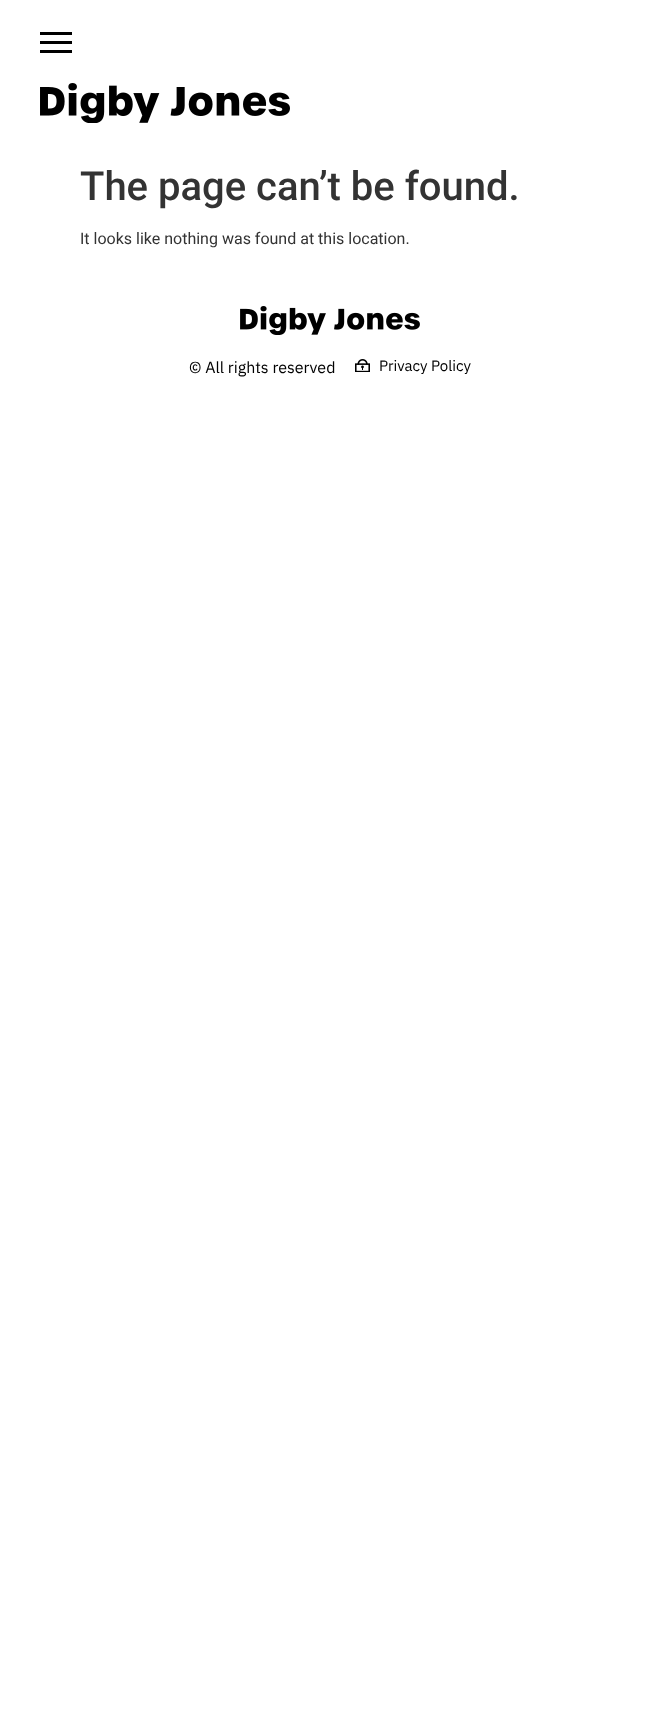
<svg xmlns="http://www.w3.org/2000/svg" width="660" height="1720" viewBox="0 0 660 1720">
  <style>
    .t1 { font: 500 40px Roboto; fill: #333; }
    .t2 { font: 16px Roboto; fill: #333; }
    .t3 { font: 16px IBM Plex Sans; fill: #000; }
    .t4 { font: 15px IBM Plex Sans; fill: #000; }
  </style>
  <rect width="100%" height="100%" fill="#fff"/>
  <rect x="40" y="32" width="32" height="3" fill="#000"/>
  <rect x="40" y="50" width="32" height="3" fill="#000"/>
  <rect x="40" y="41" width="32" height="3" fill="#000"/>
  <image x="40" y="83" width="250" height="40" href="images/1.png"/>
  <text x="80" y="200" class="t1">The page can’t be found.</text>
  <text x="80" y="244" class="t2">It looks like nothing was found at this location.</text>
  <image x="240" y="306" width="180" height="29" href="images/2.png"/>
  <text x="189" y="373" class="t3">© All rights reserved</text>
  <image x="355" y="359" width="15" height="13" href="images/3.png"/>
  <text x="379" y="371" class="t4">Privacy Policy</text>
</svg>
